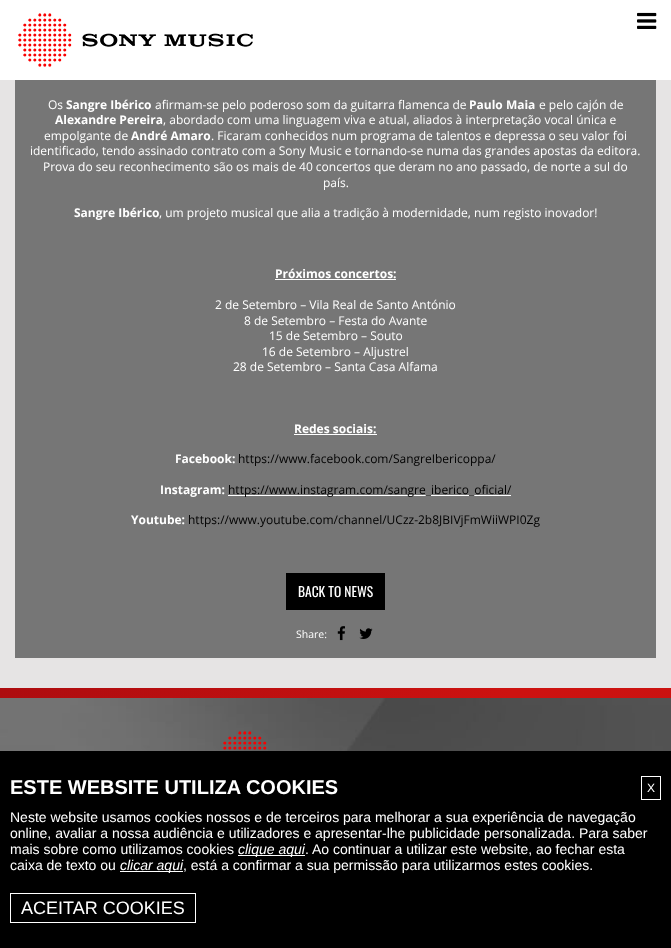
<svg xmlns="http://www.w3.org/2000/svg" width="671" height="948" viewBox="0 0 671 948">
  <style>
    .t1 { font: 12px Open Sans; fill: #fff; }
    .t2 { font: bold 12px Open Sans; fill: #fff; }
    .t3 { font: 12px Open Sans; fill: #000; }
    .t4 { font: 13.5px Oswald; fill: #fff; }
    .t5 { font: 10.5px Open Sans; fill: #fff; }
    .t6 { font: bold 20px Liberation Sans; fill: #fff; }
    .t7 { font: 12px Liberation Sans; fill: #fff; }
    .t8 { font: 14px Liberation Sans; fill: #fff; }
    .t9 { font: italic 14px Liberation Sans; fill: #fff; }
    .t10 { font: 18px Liberation Sans; fill: #fff; }
  </style>
  <defs>
    <linearGradient id="g1" gradientUnits="userSpaceOnUse" x1="-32" y1="768" x2="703" y2="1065"><stop offset="0" stop-color="#ad0c0f"/><stop offset="0.6" stop-color="#cd1210"/><stop offset="1" stop-color="#c91211"/></linearGradient>
  </defs>
  <rect width="100%" height="100%" fill="#e6e4e4"/>
  <rect x="0" y="0" width="671" height="80" fill="#fff"/>
  <image x="18" y="13" width="235" height="54" href="images/1.png"/>
  <image x="637" y="12" width="20" height="17" href="images/2.png"/>
  <rect x="15" y="80" width="641" height="578" fill="#767676"/>
  <text x="48" y="109" class="t1">Os</text>
  <text x="66" y="109" class="t2">Sangre Ibérico</text>
  <text x="155" y="109" class="t1">afirmam-se pelo poderoso som da guitarra flamenca de</text>
  <text x="469" y="109" class="t2">Paulo Maia</text>
  <text x="539" y="109" class="t1">e pelo cajón de</text>
  <text x="55" y="124" class="t2">Alexandre Pereira</text>
  <text x="163" y="124" class="t1">, abordado com uma linguagem viva e atual, aliados à interpretação vocal única e</text>
  <text x="44" y="140" class="t1">empolgante de</text>
  <text x="131" y="140" class="t2">André Amaro</text>
  <text x="211" y="140" class="t1">. Ficaram conhecidos num programa de talentos e depressa o seu valor foi</text>
  <text x="30" y="155" class="t1">identificado, tendo assinado contrato com a Sony Music e tornando-se numa das grandes apostas da editora.</text>
  <text x="43" y="171" class="t1">Prova do seu reconhecimento são os mais de 40 concertos que deram no ano passado, de norte a sul do</text>
  <text x="323" y="187" class="t1">país.</text>
  <text x="74" y="217" class="t2">Sangre Ibérico</text>
  <text x="159" y="217" class="t1">, um projeto musical que alia a tradição à modernidade, num registo inovador!</text>
  <text x="275" y="278" class="t2">Próximos concertos:</text>
  <rect x="275" y="279" width="121" height="1" fill="#fff"/>
  <text x="215" y="309" class="t1">2 de Setembro – Vila Real de Santo António</text>
  <text x="244" y="325" class="t1">8 de Setembro – Festa do Avante</text>
  <text x="269" y="340" class="t1">15 de Setembro – Souto</text>
  <text x="262" y="356" class="t1">16 de Setembro – Aljustrel</text>
  <text x="233" y="371" class="t1">28 de Setembro – Santa Casa Alfama</text>
  <text x="294" y="433" class="t2">Redes sociais:</text>
  <rect x="294" y="434" width="83" height="1" fill="#fff"/>
  <text x="175" y="463" class="t2">Facebook:</text>
  <text x="238" y="463" class="t3">https://www.facebook.com/SangreIbericoppa/</text>
  <text x="160" y="494" class="t2">Instagram:</text>
  <rect x="228" y="495" width="283" height="1" fill="#fff"/>
  <text x="228" y="494" class="t3">https://www.instagram.com/sangre_iberico_oficial/</text>
  <text x="131" y="524" class="t2">Youtube:</text>
  <text x="188" y="524" class="t3">https://www.youtube.com/channel/UCzz-2b8JBIVjFmWiiWPI0Zg</text>
  <rect x="286" y="573" width="99" height="37" fill="#000"/>
  <text x="298" y="597" class="t4">BACK TO NEWS</text>
  <text x="296" y="638" class="t5">Share:</text>
  <image x="337" y="626" width="8" height="15" href="images/3.png"/>
  <image x="359" y="628" width="14" height="11" href="images/4.png"/>
  <rect x="0" y="688" width="671" height="10" fill="url(#g1)"/>
  <image x="0" y="698" width="671" height="53" href="images/5.png"/>
  <image x="223" y="731" width="44" height="19" href="images/6.png"/>
  <rect x="0" y="751" width="671" height="197" fill="#000"/>
  <text x="10" y="794" class="t6">ESTE WEBSITE UTILIZA COOKIES</text>
  <rect x="641.5" y="776.5" width="19" height="23" fill="none" stroke="#fff"/>
  <text x="647" y="792" class="t7">X</text>
  <text x="10" y="822" class="t8">Neste website usamos cookies nossos e de terceiros para melhorar a sua experiência de navegação</text>
  <text x="10" y="838" class="t8">online, avaliar a nossa audiência e utilizadores e apresentar-lhe publicidade personalizada. Para saber</text>
  <text x="10" y="854" class="t8">mais sobre como utilizamos cookies</text>
  <rect x="238" y="855" width="67" height="1" fill="#fff"/>
  <text x="238" y="854" class="t9">clique aqui</text>
  <text x="305" y="854" class="t8">. Ao continuar a utilizar este website, ao fechar esta</text>
  <text x="10" y="870" class="t8">caixa de texto ou</text>
  <rect x="120" y="871" width="63" height="1" fill="#fff"/>
  <text x="120" y="870" class="t9">clicar aqui</text>
  <text x="183" y="870" class="t8">, está a confirmar a sua permissão para utilizarmos estes cookies.</text>
  <rect x="10.5" y="893.5" width="185" height="29" fill="none" stroke="#fff"/>
  <text x="21" y="914" class="t10">ACEITAR COOKIES</text>
</svg>
